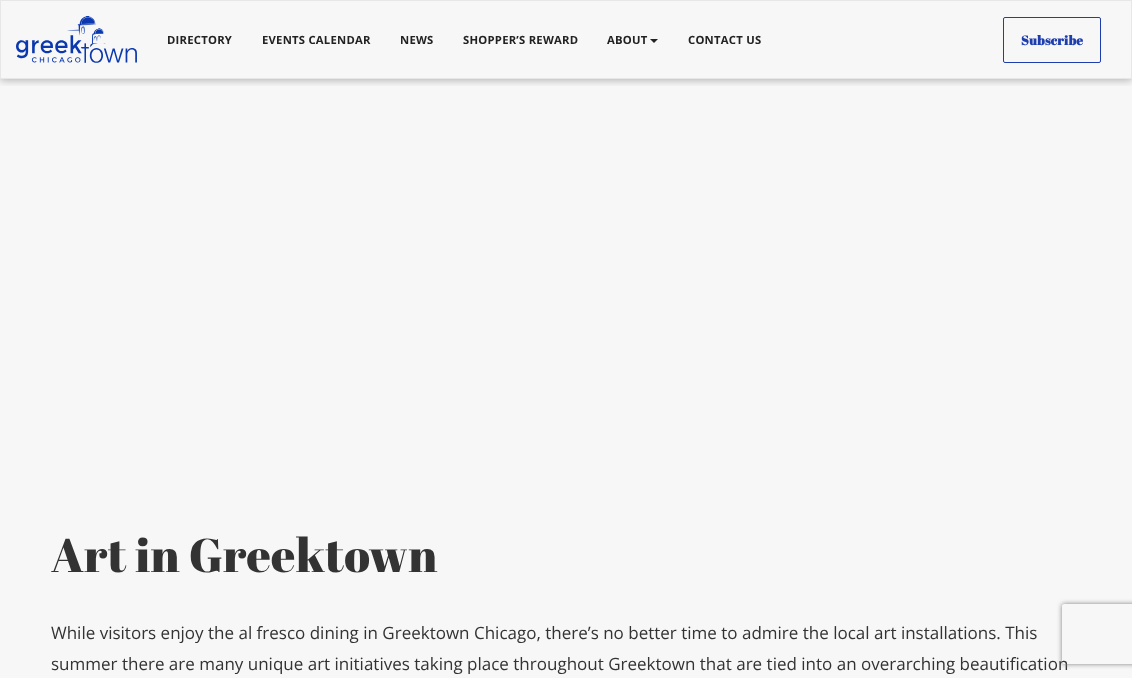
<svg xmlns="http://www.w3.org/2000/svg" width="1132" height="678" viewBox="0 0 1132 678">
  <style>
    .t1 { font: bold 11.25px Open Sans; letter-spacing: 0.25px; fill: #222; }
    .t2 { font: bold 13px Abril Fatface; letter-spacing: 0.25px; fill: #1e3dae; }
    .t3 { font: 47.25px Abril Fatface; letter-spacing: 0.25px; fill: #333; }
    .t4 { font: 17px Open Sans; fill: #333; }
  </style>
  <defs>
    <clipPath id="clip1"><rect x="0" y="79" width="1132" height="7"/></clipPath>
    <clipPath id="clip2"><path d="M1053 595H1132V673H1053ZM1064 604H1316C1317 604 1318 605 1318 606V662C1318 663 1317 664 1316 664H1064C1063 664 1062 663 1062 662V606C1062 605 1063 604 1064 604Z" clip-rule="evenodd"/></clipPath>
  </defs>
  <rect width="100%" height="100%" fill="#f7f7f7"/>
  <g clip-path="url(#clip1)">
    <rect x="0" y="1" width="1132" height="79" fill="#0000004d" filter="blur(4px)"/>
  </g>
  <rect x="0.5" y="0.5" width="1131" height="78" fill="none" stroke="#e7e7e7"/>
  <image x="16" y="16" width="121" height="47" href="images/1.png"/>
  <text x="167" y="44" class="t1">DIRECTORY</text>
  <text x="262" y="44" class="t1">EVENTS CALENDAR</text>
  <text x="400" y="44" class="t1">NEWS</text>
  <text x="463" y="44" class="t1">SHOPPER’S REWARD</text>
  <text x="607" y="44" class="t1">ABOUT</text>
  <path d="M650 39H658L654 43Z" fill="#222"/>
  <text x="688" y="44" class="t1">CONTACT US</text>
  <rect x="1003.5" y="17.5" width="97" height="45" rx="1.5" fill="none" stroke="#1e3dae"/>
  <text x="1021" y="45" class="t2">Subscribe</text>
  <text x="51" y="572" class="t3">Art in Greektown</text>
  <text x="51" y="639" class="t4">While visitors enjoy the al fresco dining in Greektown Chicago, there’s no better time to admire the local art installations. This</text>
  <text x="51" y="670" class="t4">summer there are many unique art initiatives taking place throughout Greektown that are tied into an overarching beautification</text>
  <g clip-path="url(#clip2)">
    <rect x="1062" y="604" width="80" height="60" rx="2" fill="#808080" filter="blur(2.5px)"/>
  </g>
</svg>
